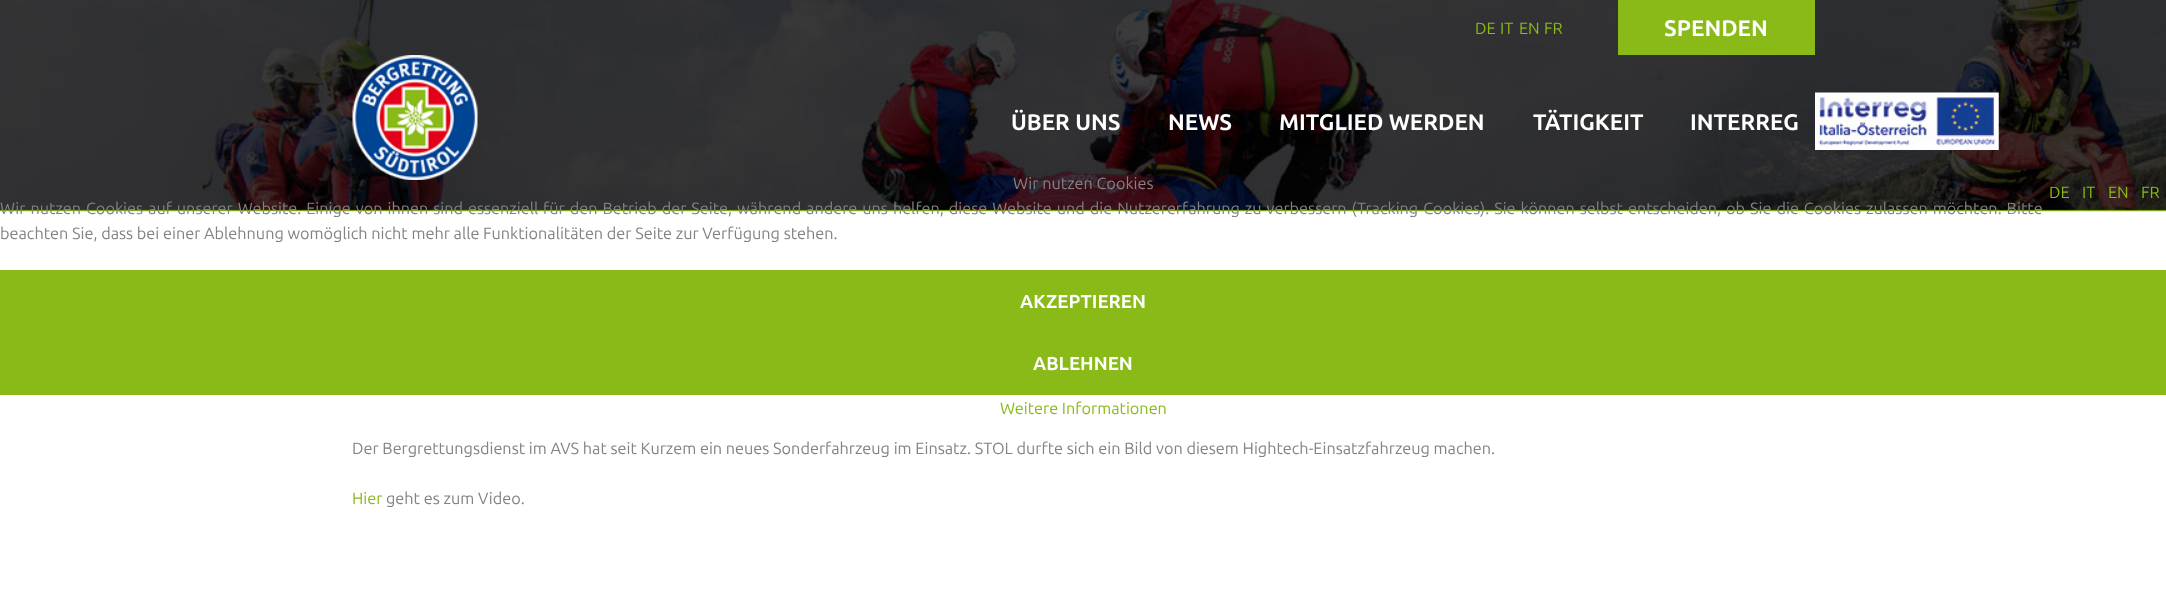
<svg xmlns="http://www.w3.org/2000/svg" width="2166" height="589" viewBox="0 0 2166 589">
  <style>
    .t1 { font: 16.25px Ubuntu; fill: #89ba17; }
    .t2 { font: bold 22.5px Ubuntu; fill: #fff; }
    .t3 { font: 16.25px Ubuntu; fill: #838383; }
    .t4 { font: bold 18.75px Ubuntu; fill: #fff; }
  </style>
  <rect width="100%" height="100%" fill="#fff"/>
  <image x="0" y="0" width="2166" height="212" href="images/1.png"/>
  <text x="1475" y="34" class="t1">DE</text>
  <text x="1500" y="34" class="t1">IT</text>
  <text x="1519" y="34" class="t1">EN</text>
  <text x="1544" y="34" class="t1">FR</text>
  <rect x="1618" y="0" width="197" height="55" fill="#89ba17"/>
  <text x="1664" y="36" class="t2">SPENDEN</text>
  <image x="352" y="55" width="126" height="125" href="images/2.png"/>
  <text x="1011" y="130" class="t2">ÜBER UNS</text>
  <text x="1168" y="130" class="t2">NEWS</text>
  <text x="1279" y="130" class="t2">MITGLIED WERDEN</text>
  <text x="1533" y="130" class="t2">TÄTIGKEIT</text>
  <text x="1690" y="130" class="t2">INTERREG</text>
  <image x="1815" y="92" width="184" height="58" href="images/3.png"/>
  <text x="352" y="454" class="t3">Der Bergrettungsdienst im AVS hat seit Kurzem ein neues Sonderfahrzeug im Einsatz. STOL durfte sich ein Bild von diesem Hightech-Einsatzfahrzeug machen.</text>
  <text x="352" y="504" class="t1">Hier</text>
  <text x="386" y="504" class="t3">geht es zum Video.</text>
  <text x="1013" y="189" class="t3">Wir nutzen Cookies</text>
  <text x="2049" y="198" class="t1">DE</text>
  <text x="2082" y="198" class="t1">IT</text>
  <text x="2108" y="198" class="t1">EN</text>
  <text x="2141" y="198" class="t1">FR</text>
  <text x="0" y="214" word-spacing="1.25" class="t3">Wir nutzen Cookies auf unserer Website. Einige von ihnen sind essenziell für den Betrieb der Seite, während andere uns helfen, diese Website und die Nutzererfahrung zu verbessern (Tracking Cookies). Sie können selbst entscheiden, ob Sie die Cookies zulassen möchten. Bitte</text>
  <text x="0" y="239" class="t3">beachten Sie, dass bei einer Ablehnung womöglich nicht mehr alle Funktionalitäten der Seite zur Verfügung stehen.</text>
  <rect x="0" y="270" width="2166" height="125" fill="#89ba17"/>
  <text x="1020" y="308" class="t4">AKZEPTIEREN</text>
  <text x="1033" y="370" class="t4">ABLEHNEN</text>
  <text x="1000" y="414" class="t1">Weitere Informationen</text>
</svg>
